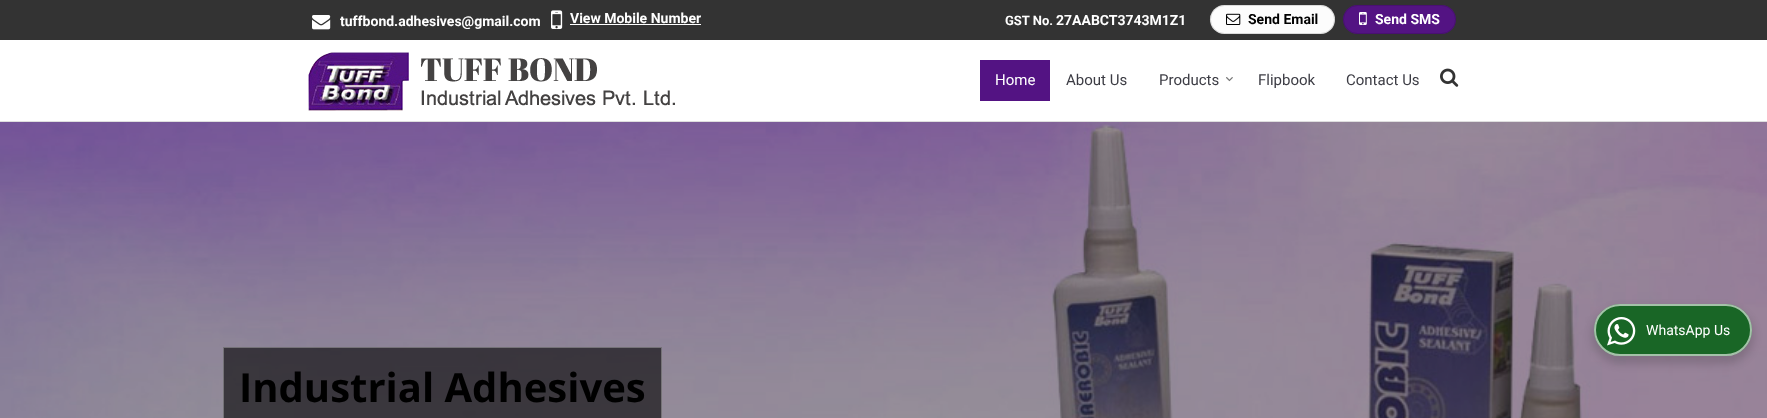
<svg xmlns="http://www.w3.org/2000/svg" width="1767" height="418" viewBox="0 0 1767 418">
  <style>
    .t1 { font: bold 14px Roboto; fill: #fff; }
    .t2 { font: bold 13px Roboto; fill: #fff; }
    .t3 { font: bold 14px Roboto; fill: #000; }
    .t4 { font: 15px Roboto; fill: #fff; }
    .t5 { font: 15px Roboto; fill: #3c3c44; }
    .t6 { font: bold 40px Open Sans; fill: #000; }
    .t7 { font: 14px Roboto; fill: #fff; }
  </style>
  <rect width="100%" height="100%" fill="#fff"/>
  <rect x="0" y="0" width="1767" height="40" fill="#333"/>
  <image x="312" y="15" width="19" height="15" href="images/1.png"/>
  <text x="340" y="26" class="t1">tuffbond.adhesives@gmail.com</text>
  <image x="551" y="10" width="12" height="19" href="images/2.png"/>
  <text x="570" y="23" class="t1">View Mobile Number</text>
  <rect x="570" y="24" width="131" height="1" fill="#fff"/>
  <text x="1005" y="25" class="t2">GST No.</text>
  <text x="1056" y="25" class="t1">27AABCT3743M1Z1</text>
  <rect x="1210" y="5" width="125" height="29" rx="14.5" fill="#fcfcfc"/>
  <rect x="1210.5" y="5.5" width="124" height="28" rx="14" fill="none" stroke="#00000021"/>
  <image x="1226" y="13" width="15" height="12" href="images/3.png"/>
  <text x="1248" y="24" class="t3">Send Email</text>
  <rect x="1343" y="5" width="113" height="29" rx="14.5" fill="#531383"/>
  <rect x="1343.5" y="5.5" width="112" height="28" rx="14" fill="none" stroke="#00000021"/>
  <image x="1359" y="12" width="8" height="13" href="images/4.png"/>
  <text x="1375" y="24" class="t1">Send SMS</text>
  <rect x="0" y="121" width="1767" height="1" fill="#dedede"/>
  <image x="308" y="52" width="367" height="59" href="images/5.png"/>
  <rect x="980" y="60" width="70" height="41" fill="#531383"/>
  <text x="995" y="85" class="t4">Home</text>
  <text x="1066" y="85" class="t5">About Us</text>
  <text x="1159" y="85" class="t5">Products</text>
  <image x="1226" y="77" width="7" height="5" href="images/6.png"/>
  <text x="1258" y="85" class="t5">Flipbook</text>
  <text x="1346" y="85" class="t5">Contact Us</text>
  <image x="1440" y="68" width="19" height="19" href="images/7.png"/>
  <image x="0" y="122" width="1767" height="296" href="images/8.png"/>
  <rect x="223" y="347" width="439" height="71" fill="#00000099"/>
  <rect x="223.5" y="347.5" width="438" height="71" fill="none" stroke="#ffffff4d"/>
  <text x="239" y="402" class="t6">Industrial Adhesives</text>
  <rect x="1592" y="308" width="162" height="56" rx="28" fill="#00000024" filter="blur(4px)"/>
  <rect x="1594" y="304" width="158" height="52" rx="26" fill="#196626"/>
  <rect x="1595" y="305" width="156" height="50" rx="25" fill="none" stroke="#ffffff99" stroke-width="2"/>
  <image x="1607" y="317" width="29" height="29" href="images/9.png"/>
  <text x="1646" y="335" class="t7">WhatsApp Us</text>
</svg>
